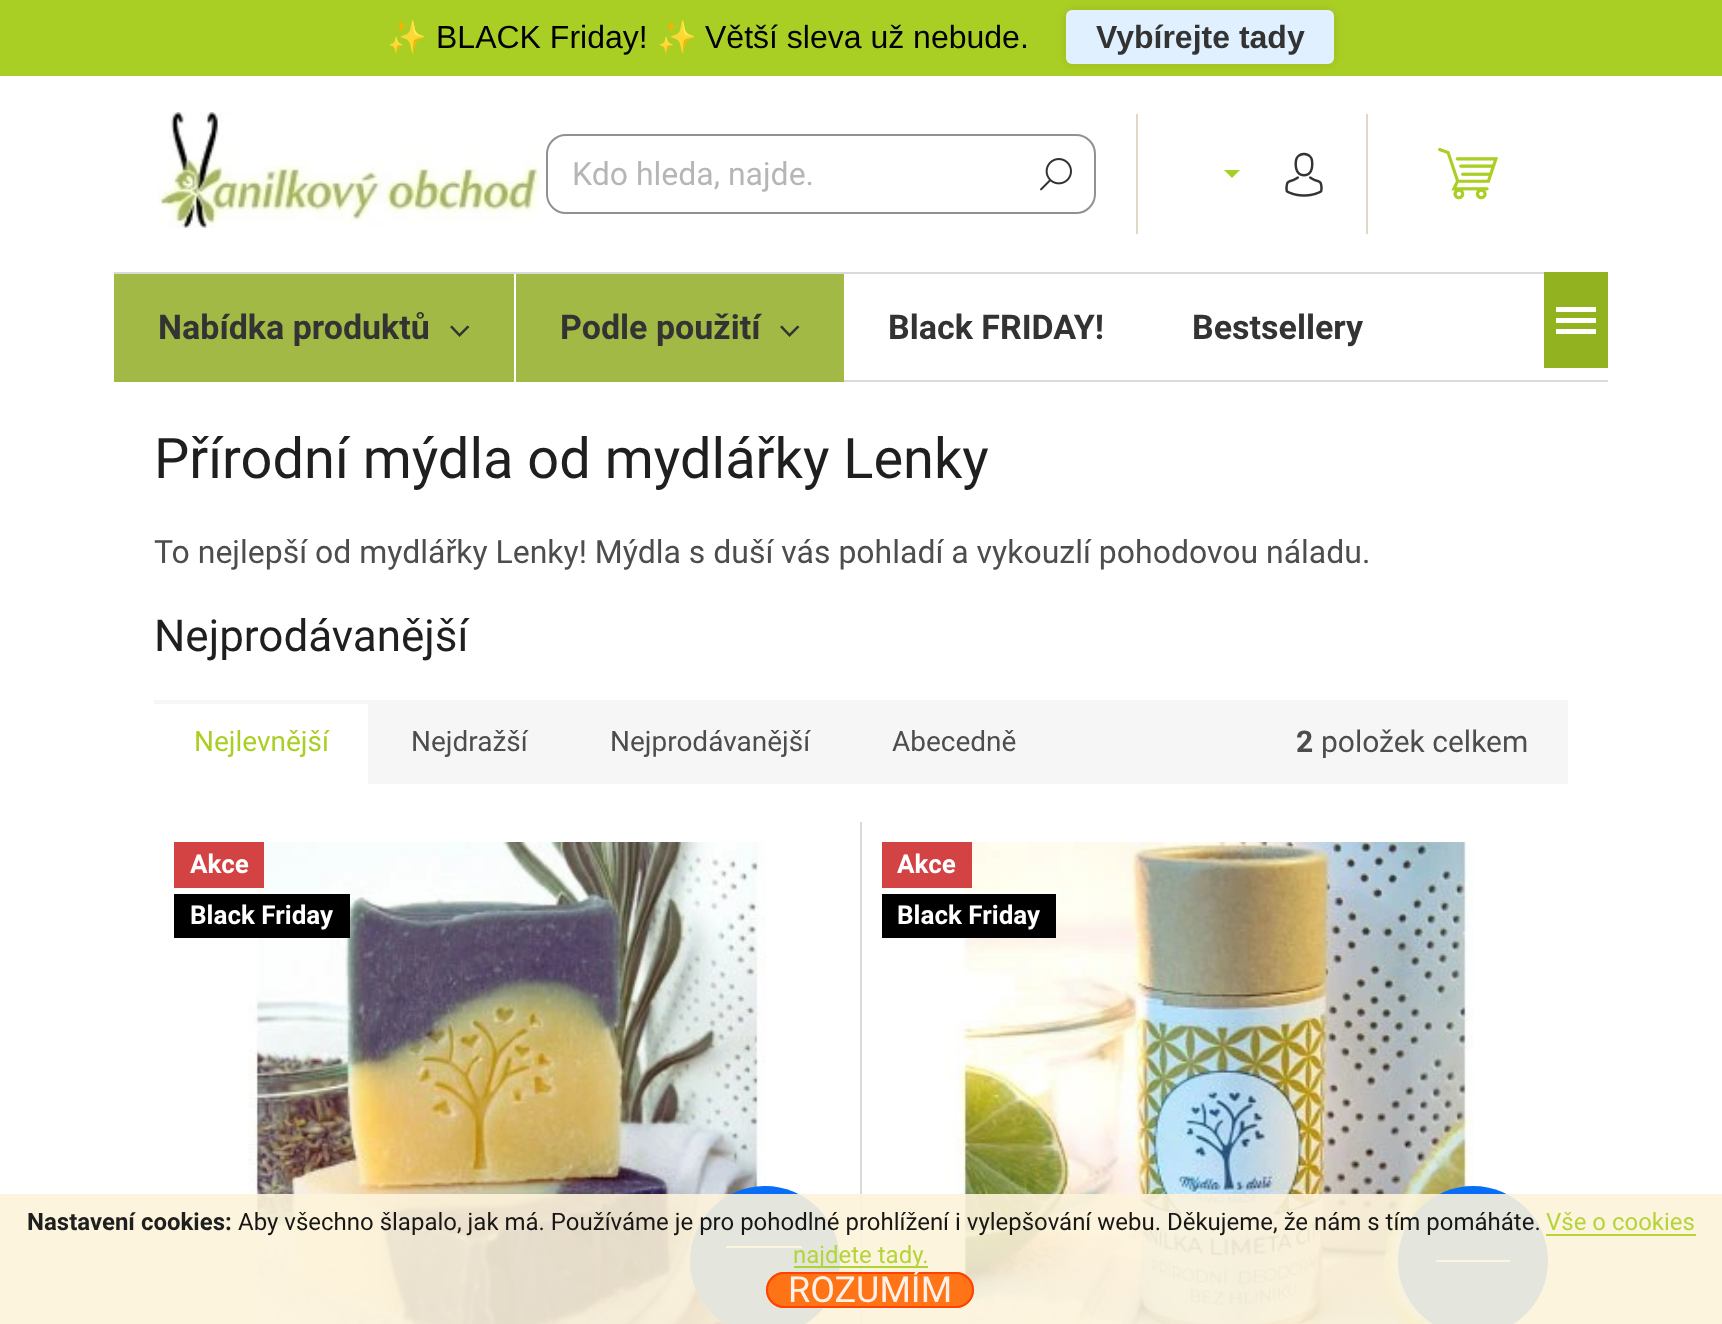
<svg xmlns="http://www.w3.org/2000/svg" width="1722" height="1324" viewBox="0 0 1722 1324">
  <style>
    .t1 { font: 32px Noto Color Emoji; fill: #000; }
    .t2 { font: 32px Liberation Sans; fill: #000; }
    .t3 { font: bold 32px Liberation Sans; fill: #333; }
    .t4 { font: 32px Roboto; fill: #b6b6b6; }
    .t5 { font: bold 34px Roboto; fill: #333; }
    .t6 { font: 56px Roboto; fill: #1f1f1f; }
    .t7 { font: 32px Roboto; fill: #4d4d4d; }
    .t8 { font: 44px Roboto; fill: #1f1f1f; }
    .t9 { font: 28px Roboto; fill: #aacf24; }
    .t10 { font: 28px Roboto; fill: #4d4d4d; }
    .t11 { font: bold 30px Roboto; fill: #4d4d4d; }
    .t12 { font: 30px Roboto; fill: #4d4d4d; }
    .t13 { font: bold 26px Roboto; fill: #fff; }
    .t14 { font: bold 24px Roboto; fill: #1f1f1f; }
    .t15 { font: 24px Roboto; fill: #181716; }
    .t16 { font: 24px Roboto; fill: #b3d43a; }
    .t17 { font: 36px Roboto; fill: #fff1e8; }
  </style>
  <rect width="100%" height="100%" fill="#fff"/>
  <rect x="0" y="0" width="1722" height="76" fill="#aacf24"/>
  <text x="387" y="48" class="t1">✨</text>
  <text x="436" y="48" class="t2">BLACK Friday!</text>
  <text x="657" y="48" class="t1">✨</text>
  <text x="705" y="48" class="t2">Větší sleva už nebude.</text>
  <rect x="1066" y="10" width="268" height="54" rx="6" fill="#0000001a" filter="blur(5px)"/>
  <rect x="1066" y="10" width="268" height="54" rx="6" fill="#e0f0ff"/>
  <text x="1096" y="48" class="t3">Vybírejte tady</text>
  <image x="157" y="112" width="384" height="116" href="images/1.png"/>
  <rect x="547" y="135" width="548" height="78" rx="19" fill="none" stroke="#919191" stroke-width="2"/>
  <text x="572" y="185" class="t4">Kdo hleda, najde.</text>
  <image x="1040" y="158" width="32" height="33" href="images/2.png"/>
  <rect x="1366" y="114" width="2" height="120" fill="#e1d7c7"/>
  <rect x="1136" y="114" width="2" height="120" fill="#e1d7c7"/>
  <path d="M1224 170H1240L1232 178Z" fill="#aacf24"/>
  <image x="1285" y="152" width="38" height="45" href="images/3.png"/>
  <image x="1438" y="147" width="60" height="53" href="images/4.png"/>
  <rect x="114" y="272" width="1430" height="2" fill="#dadada"/>
  <rect x="114" y="274" width="400" height="108" fill="#a3b946"/>
  <text x="158" y="339" class="t5">Nabídka produktů</text>
  <path d="M450 327L452 325.5L459.5 333.5L467.5 325.5L469.5 327L459.5 337Z" fill="#333"/>
  <rect x="516" y="274" width="328" height="108" fill="#a3b946"/>
  <text x="560" y="339" class="t5">Podle použití</text>
  <path d="M780 327L782 325.5L789.5 333.5L797.5 325.5L799.5 327L789.5 337Z" fill="#333"/>
  <text x="888" y="339" class="t5">Black FRIDAY!</text>
  <text x="1192" y="339" class="t5">Bestsellery</text>
  <rect x="844" y="380" width="764" height="2" fill="#dadada"/>
  <rect x="1544" y="272" width="64" height="96" fill="#92b21f"/>
  <path d="M1556 334H1596V329H1556ZM1556 323H1596V318H1556ZM1556 307V312H1596V307Z" fill="#fff"/>
  <text x="154" y="478" class="t6">Přírodní mýdla od mydlářky Lenky</text>
  <text x="154" y="563" class="t7">To nejlepší od mydlářky Lenky! Mýdla s duší vás pohladí a vykouzlí pohodovou náladu.</text>
  <text x="154" y="651" class="t8">Nejprodávanější</text>
  <rect x="154" y="700" width="1414" height="84" fill="#f6f6f6"/>
  <rect x="154" y="704" width="214" height="80" fill="#fff"/>
  <text x="194" y="751" class="t9">Nejlevnější</text>
  <text x="411" y="751" class="t10">Nejdražší</text>
  <text x="610" y="751" class="t10">Nejprodávanější</text>
  <text x="892" y="751" class="t10">Abecedně</text>
  <text x="1296" y="752" class="t11">2</text>
  <text x="1321" y="752" class="t12">položek celkem</text>
  <rect x="860" y="822" width="2" height="502" fill="#dadada"/>
  <image x="248" y="842" width="518" height="482" href="images/5.png"/>
  <rect x="174" y="842" width="90" height="46" fill="#d34343"/>
  <text x="190" y="873" class="t13">Akce</text>
  <rect x="174" y="894" width="176" height="44" fill="#000"/>
  <text x="190" y="924" class="t13">Black Friday</text>
  <circle cx="765" cy="1261" r="75" fill="#086df7"/>
  <rect x="726" y="1246" width="76" height="2" fill="#fff"/>
  <image x="942" y="842" width="532" height="482" href="images/6.png"/>
  <rect x="882" y="842" width="90" height="46" fill="#d34343"/>
  <text x="897" y="873" class="t13">Akce</text>
  <rect x="882" y="894" width="174" height="44" fill="#000"/>
  <text x="897" y="924" class="t13">Black Friday</text>
  <circle cx="1473" cy="1261" r="75" fill="#086df7"/>
  <rect x="1436" y="1260" width="74" height="2" fill="#fff"/>
  <rect x="0" y="1194" width="1722" height="130" fill="#fdf3dae6"/>
  <text x="27" y="1230" class="t14">Nastavení cookies:</text>
  <text x="238" y="1230" class="t15">Aby všechno šlapalo, jak má. Používáme je pro pohodlné prohlížení i vylepšování webu. Děkujeme, že nám s tím pomáháte.</text>
  <text x="1546" y="1230" class="t16">Vše o cookies</text>
  <rect x="1546" y="1234" width="150" height="2" fill="#b3d43a"/>
  <rect x="794" y="1266" width="134" height="2" fill="#aacf24e6"/>
  <text x="793" y="1263" class="t16">najdete tady.</text>
  <rect x="766" y="1272" width="208" height="36" rx="18" fill="#ff6600e6"/>
  <rect x="767" y="1273" width="206" height="34" rx="17" fill="none" stroke="#ff3c00e6" stroke-width="2"/>
  <text x="788" y="1302" class="t17">ROZUMÍM</text>
</svg>
